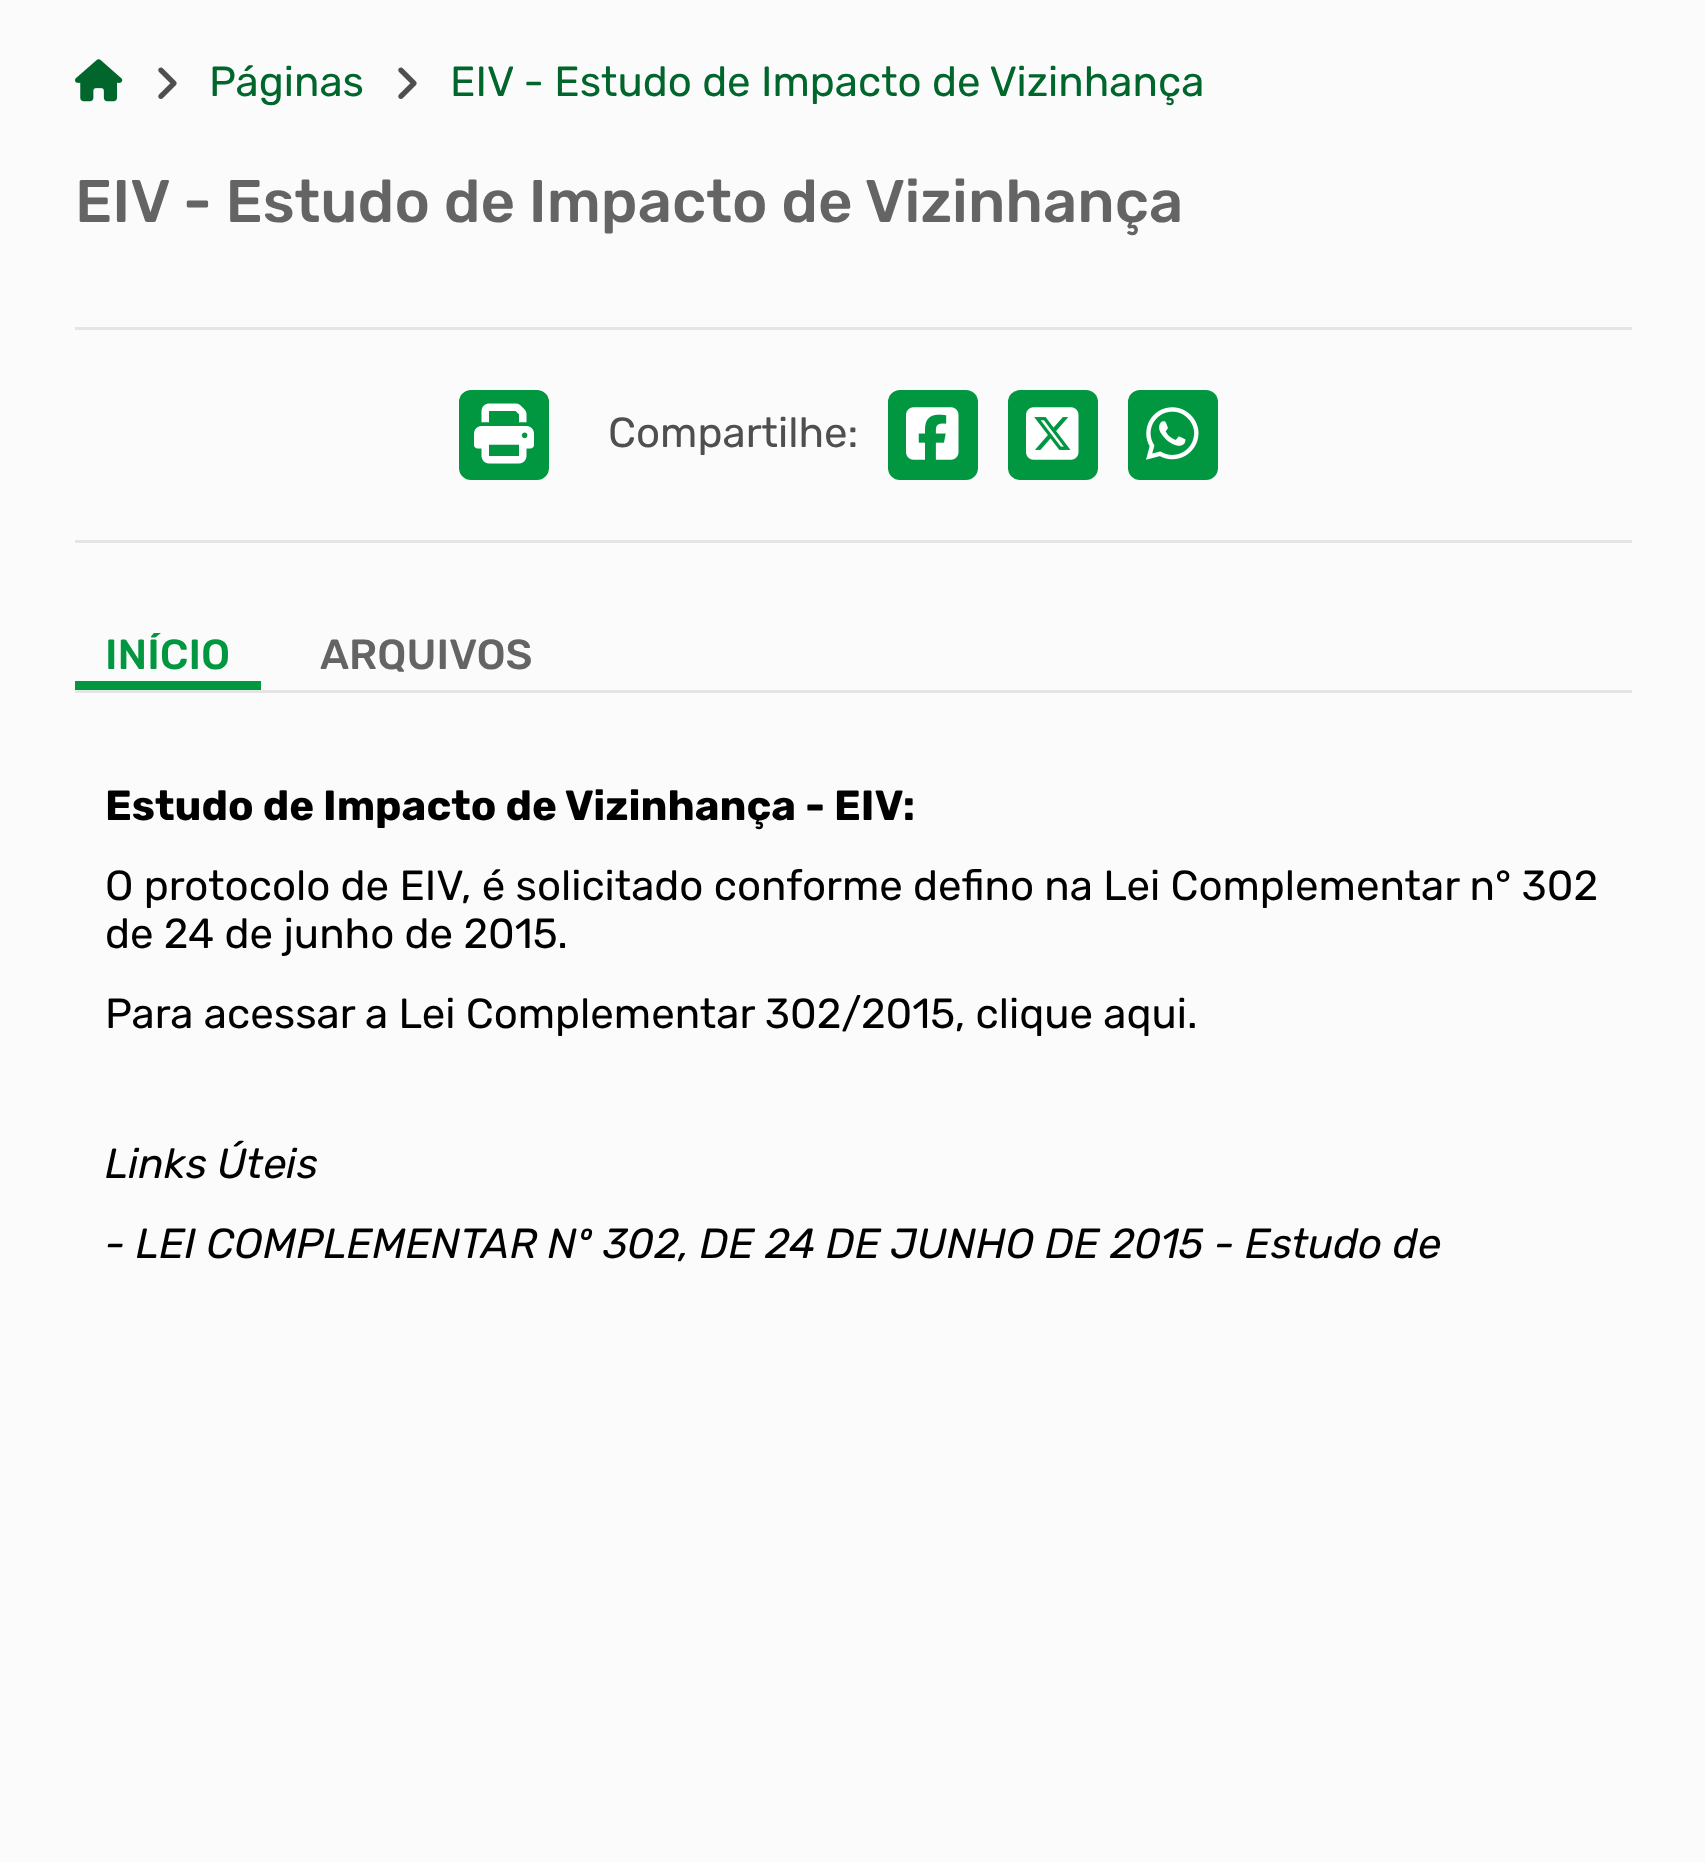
<svg xmlns="http://www.w3.org/2000/svg" width="1705" height="1862" viewBox="0 0 1705 1862">
  <style>
    .t1 { font: 42px Rubik; fill: #00662b; }
    .t2 { font: 500 60px Rubik; fill: #646464; }
    .t3 { font: 42px Rubik; fill: #4f4f50; }
    .t4 { font: 500 42px Rubik; fill: #009740; }
    .t5 { font: 500 42px Rubik; fill: #646464; }
    .t6 { font: bold 42px Rubik; fill: #000; }
    .t7 { font: 42px Rubik; fill: #000; }
    .t8 { font: italic 42px Rubik; fill: #000; }
  </style>
  <defs>
    <clipPath id="clip1"><rect x="75" y="633" width="1557" height="663"/></clipPath>
  </defs>
  <rect width="100%" height="100%" fill="#fbfbfb"/>
  <image x="75" y="59" width="48" height="43" href="images/1.png"/>
  <image x="158" y="67" width="19" height="32" href="images/2.png"/>
  <text x="209" y="96" class="t1">Páginas</text>
  <image x="398" y="67" width="19" height="32" href="images/2.png"/>
  <text x="450" y="96" class="t1">EIV - Estudo de Impacto de Vizinhança</text>
  <text x="75" y="222" class="t2">EIV - Estudo de Impacto de Vizinhança</text>
  <rect x="75" y="327" width="1557" height="3" fill="#e5e5e5"/>
  <rect x="75" y="540" width="1557" height="3" fill="#e5e5e5"/>
  <rect x="459" y="390" width="90" height="90" rx="12" fill="#009740"/>
  <image x="474" y="403" width="60" height="61" href="images/3.png"/>
  <text x="608" y="447" class="t3">Compartilhe:</text>
  <rect x="888" y="390" width="90" height="90" rx="12" fill="#009740"/>
  <image x="906" y="407" width="53" height="53" href="images/4.png"/>
  <rect x="1008" y="390" width="90" height="90" rx="12" fill="#009740"/>
  <image x="1026" y="407" width="53" height="53" href="images/5.png"/>
  <rect x="1128" y="390" width="90" height="90" rx="12" fill="#009740"/>
  <image x="1146" y="407" width="53" height="53" href="images/6.png"/>
  <rect x="75" y="690" width="1557" height="3" fill="#e5e5e5"/>
  <rect x="75" y="681" width="186" height="9" fill="#009740"/>
  <g clip-path="url(#clip1)">
    <text x="105" y="669" class="t4">INÍCIO</text>
  </g>
  <text x="320" y="669" class="t5">ARQUIVOS</text>
  <text x="105" y="820" class="t6">Estudo de Impacto de Vizinhança - EIV:</text>
  <text x="105" y="900" class="t7">O protocolo de EIV, é solicitado conforme defino na Lei Complementar n° 302</text>
  <text x="105" y="948" class="t7">de 24 de junho de 2015.</text>
  <text x="105" y="1028" class="t7">Para acessar a Lei Complementar 302/2015, clique aqui.</text>
  <text x="105" y="1178" class="t8">Links Úteis</text>
  <text x="105" y="1258" class="t8">- LEI COMPLEMENTAR Nº 302, DE 24 DE JUNHO DE 2015 - Estudo de</text>
</svg>
